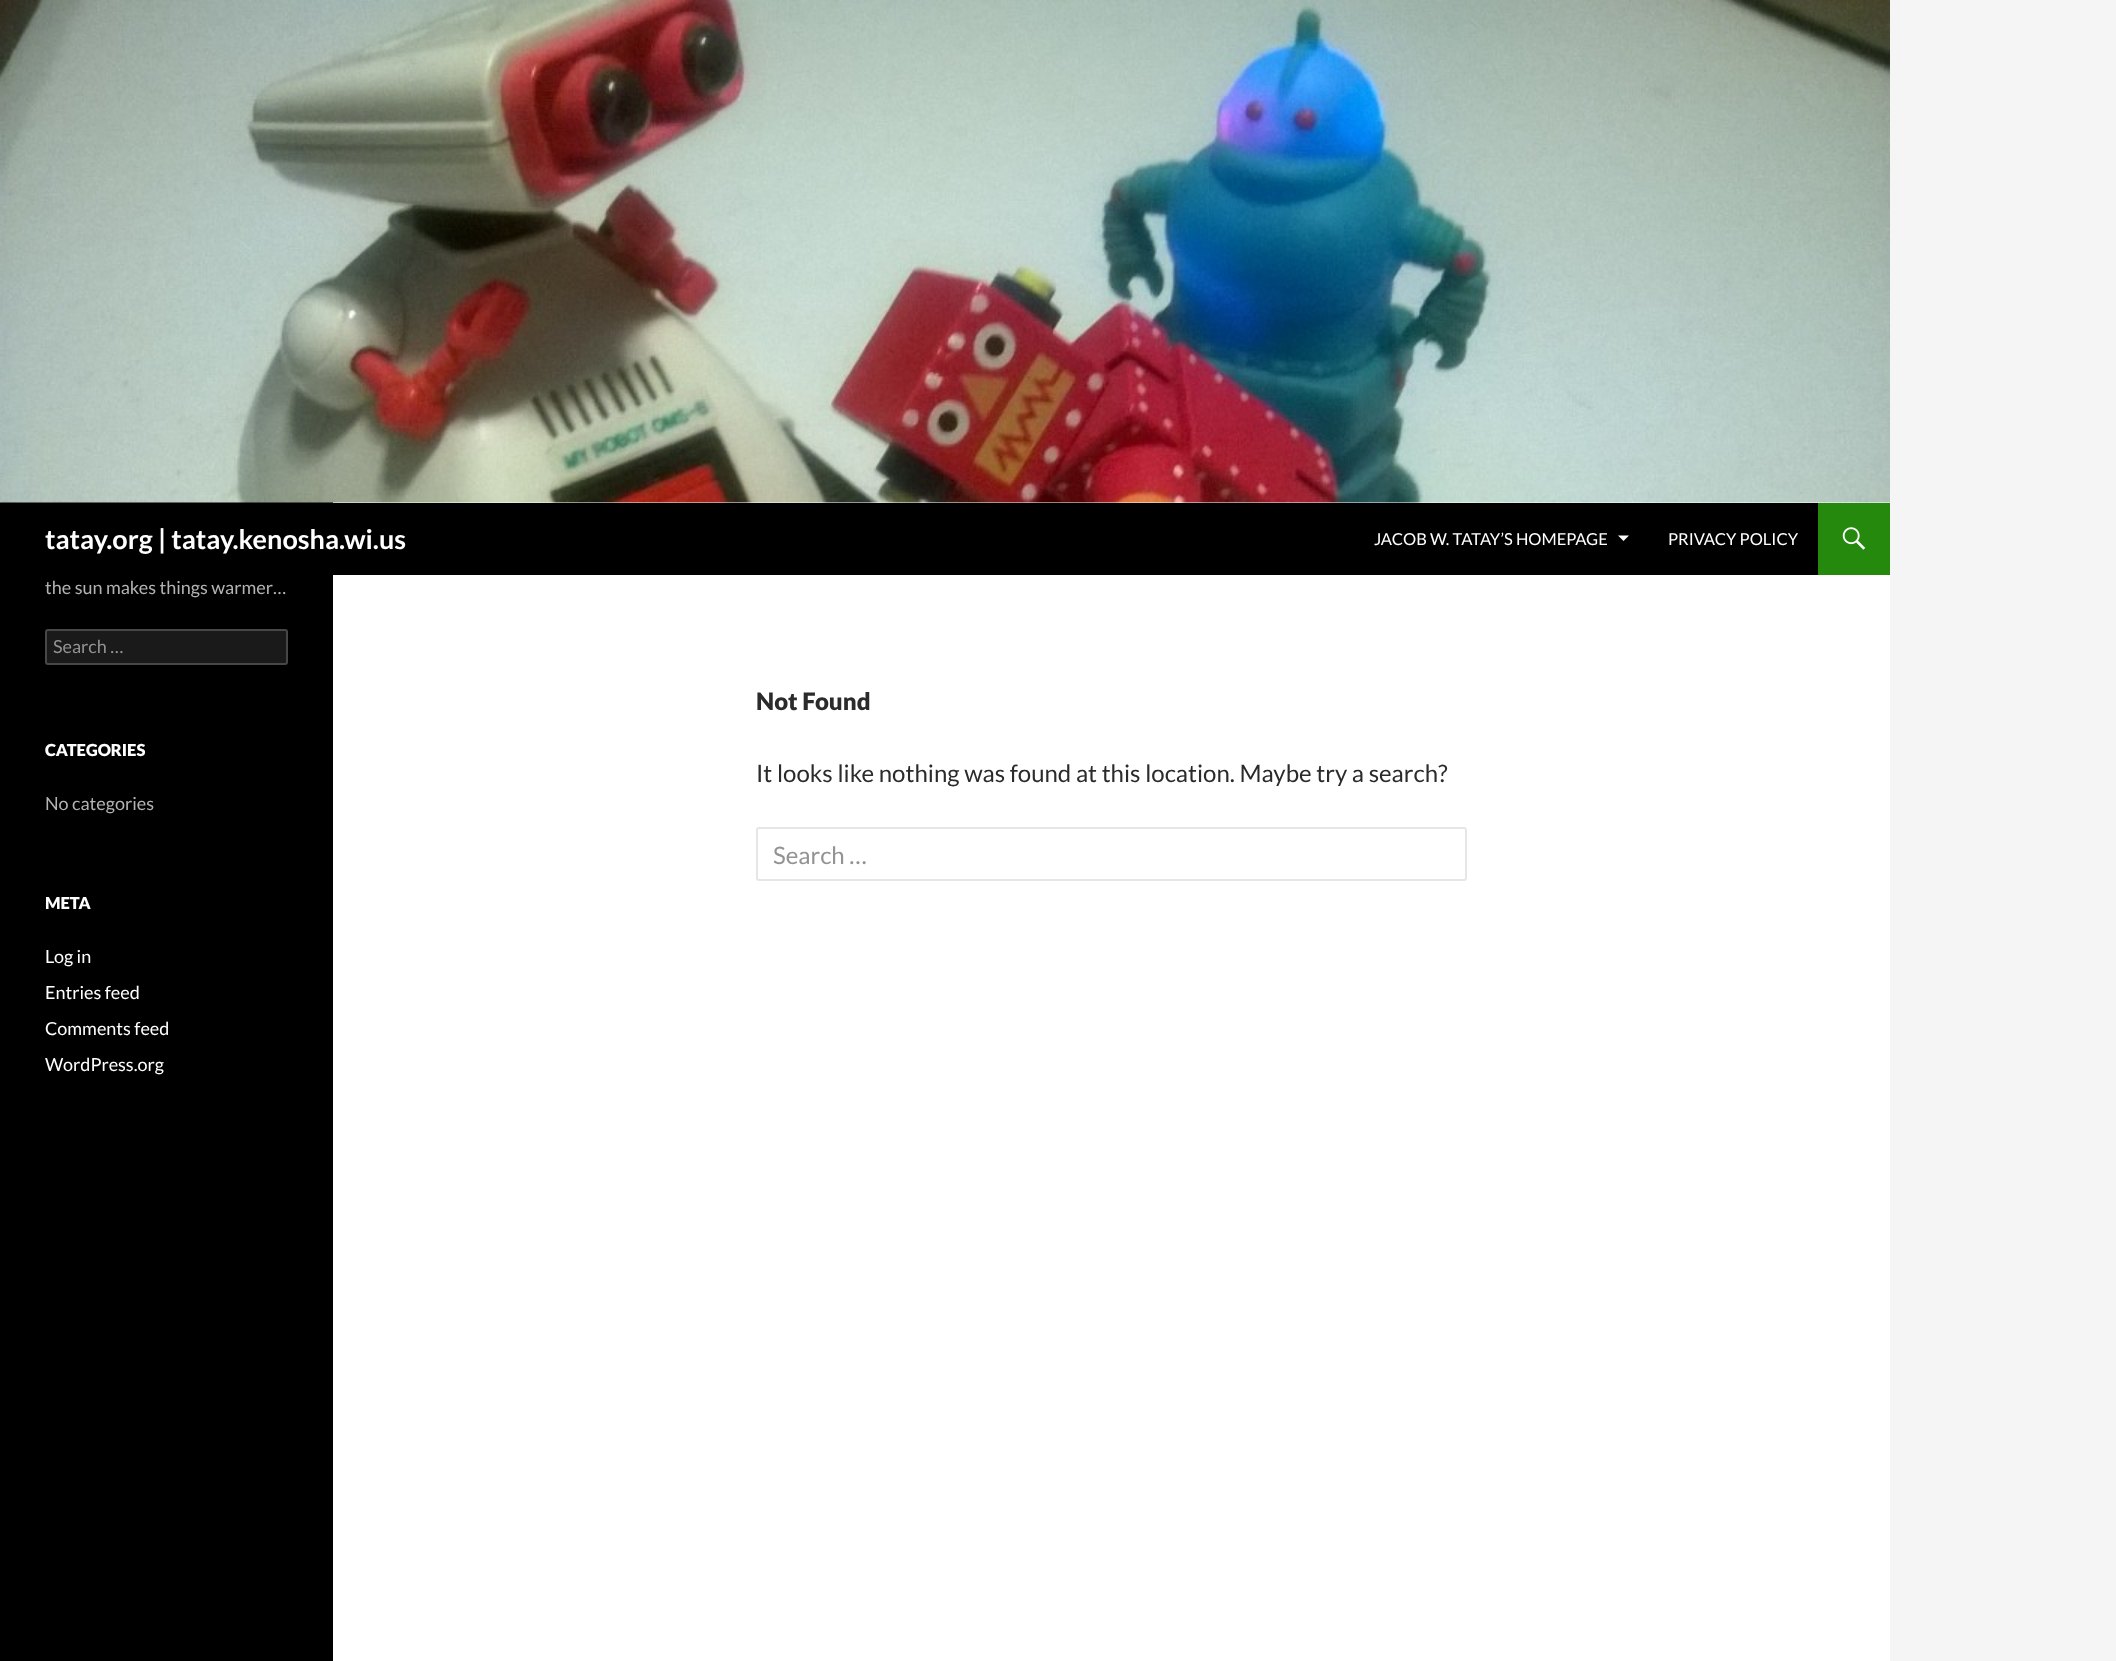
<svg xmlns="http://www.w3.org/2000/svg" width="2116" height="1661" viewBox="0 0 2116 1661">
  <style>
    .t1 { font: bold 27px Lato; fill: #fff; }
    .t2 { font: 16.5px Lato; fill: #fff; }
    .t3 { font: 18px Lato; fill: #b3b3b3; }
    .t4 { font: 18px Lato; fill: #939393; }
    .t5 { font: 900 16.5px Lato; fill: #fff; }
    .t6 { font: 18px Lato; fill: #fff; }
    .t7 { font: 900 24px Lato; fill: #2b2b2b; }
    .t8 { font: 24px Lato; fill: #2b2b2b; }
    .t9 { font: 24px Lato; fill: #939393; }
  </style>
  <rect width="100%" height="100%" fill="#f5f5f5"/>
  <rect x="333" y="502" width="1557" height="1159" fill="#fff"/>
  <rect x="0" y="502" width="333" height="1159" fill="#000"/>
  <image x="0" y="0" width="1890" height="503" href="images/1.png"/>
  <rect x="333" y="503" width="1485" height="72" fill="#000"/>
  <text x="45" y="549" class="t1">tatay.org | tatay.kenosha.wi.us</text>
  <text x="1374" y="545" class="t2">JACOB W. TATAY’S HOMEPAGE</text>
  <path d="M1618 535.5L1623.5 541L1629 535.5Z" fill="#fff"/>
  <text x="1668" y="545" class="t2">PRIVACY POLICY</text>
  <rect x="1818" y="503" width="72" height="72" fill="#24890d"/>
  <image x="1842" y="527" width="24" height="23" href="images/2.png"/>
  <text x="45" y="594" class="t3">the sun makes things warmer…</text>
  <rect x="45" y="629" width="243" height="36" rx="3" fill="#1a1a1a"/>
  <rect x="46" y="630" width="241" height="34" rx="2" fill="none" stroke="#ffffff33" stroke-width="2"/>
  <text x="53" y="653" class="t4">Search …</text>
  <text x="45" y="756" class="t5">CATEGORIES</text>
  <text x="45" y="810" class="t3">No categories</text>
  <text x="45" y="909" class="t5">META</text>
  <text x="45" y="963" class="t6">Log in</text>
  <text x="45" y="999" class="t6">Entries feed</text>
  <text x="45" y="1035" class="t6">Comments feed</text>
  <text x="45" y="1071" class="t6">WordPress.org</text>
  <text x="756" y="710" class="t7">Not Found</text>
  <text x="756" y="782" class="t8">It looks like nothing was found at this location. Maybe try a search?</text>
  <rect x="757" y="828" width="709" height="52" rx="2" fill="none" stroke="#e6e6e6" stroke-width="2"/>
  <text x="773" y="864" class="t9">Search …</text>
</svg>
